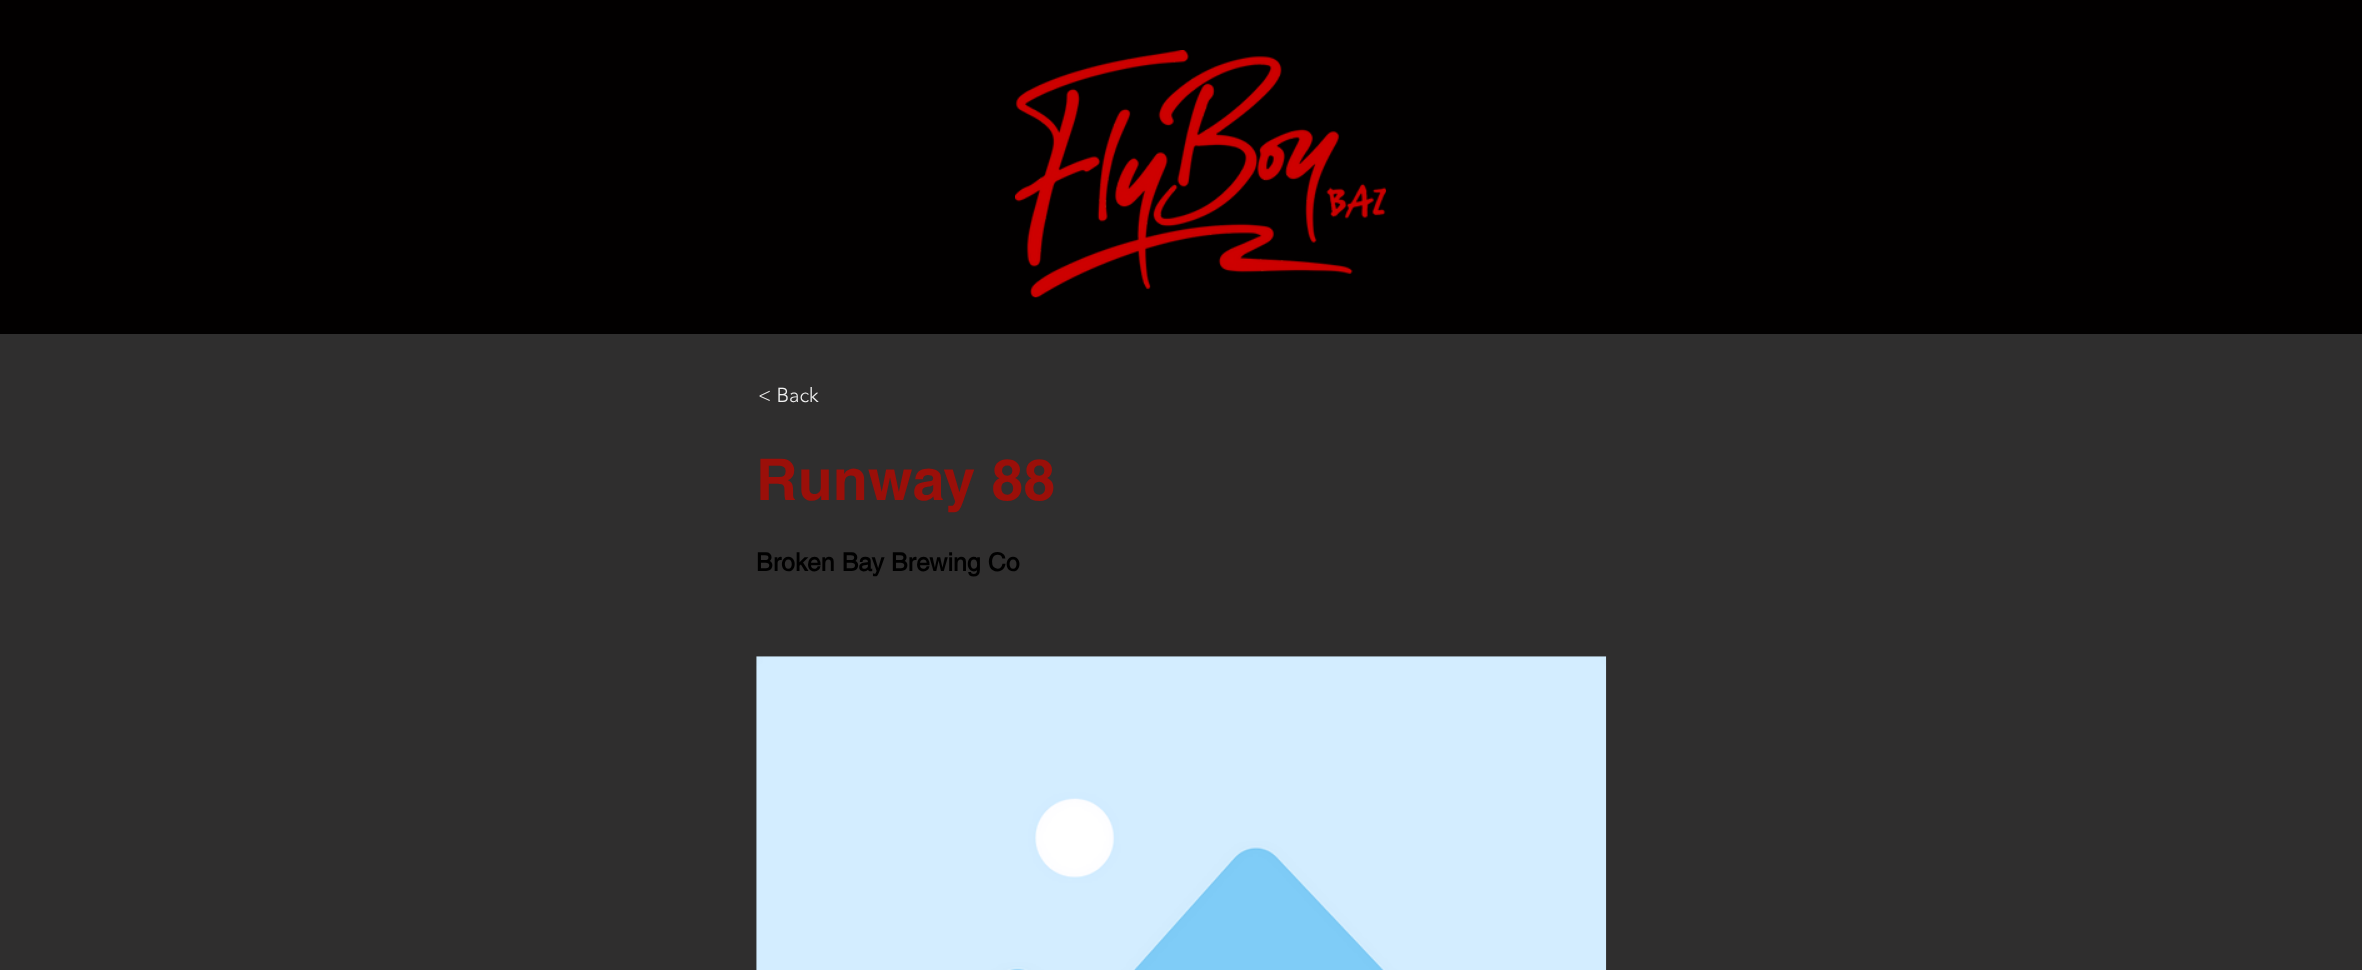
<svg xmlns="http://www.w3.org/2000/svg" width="2362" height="970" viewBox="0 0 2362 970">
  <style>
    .t1 { font: 300 20px 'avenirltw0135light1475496'; fill: #f2f2f2; }
    .t2 { font: bold 57.5px helvetica; fill: #9b0f09; }
    .t3 { font: bold 25px 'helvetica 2'; fill: #000; }
  </style>
  <rect width="100%" height="100%" fill="#2f2e2e"/>
  <rect x="0" y="0" width="2362" height="334" fill="#020000"/>
  <image x="1015" y="50" width="372" height="248" href="images/1.png"/>
  <text x="758" y="402" class="t1">&lt; Back</text>
  <text x="756" y="500" class="t2">Runway 88</text>
  <text x="756" y="571" class="t3">Broken Bay Brewing Co</text>
  <image x="756" y="656" width="851" height="314" href="images/2.png"/>
</svg>
